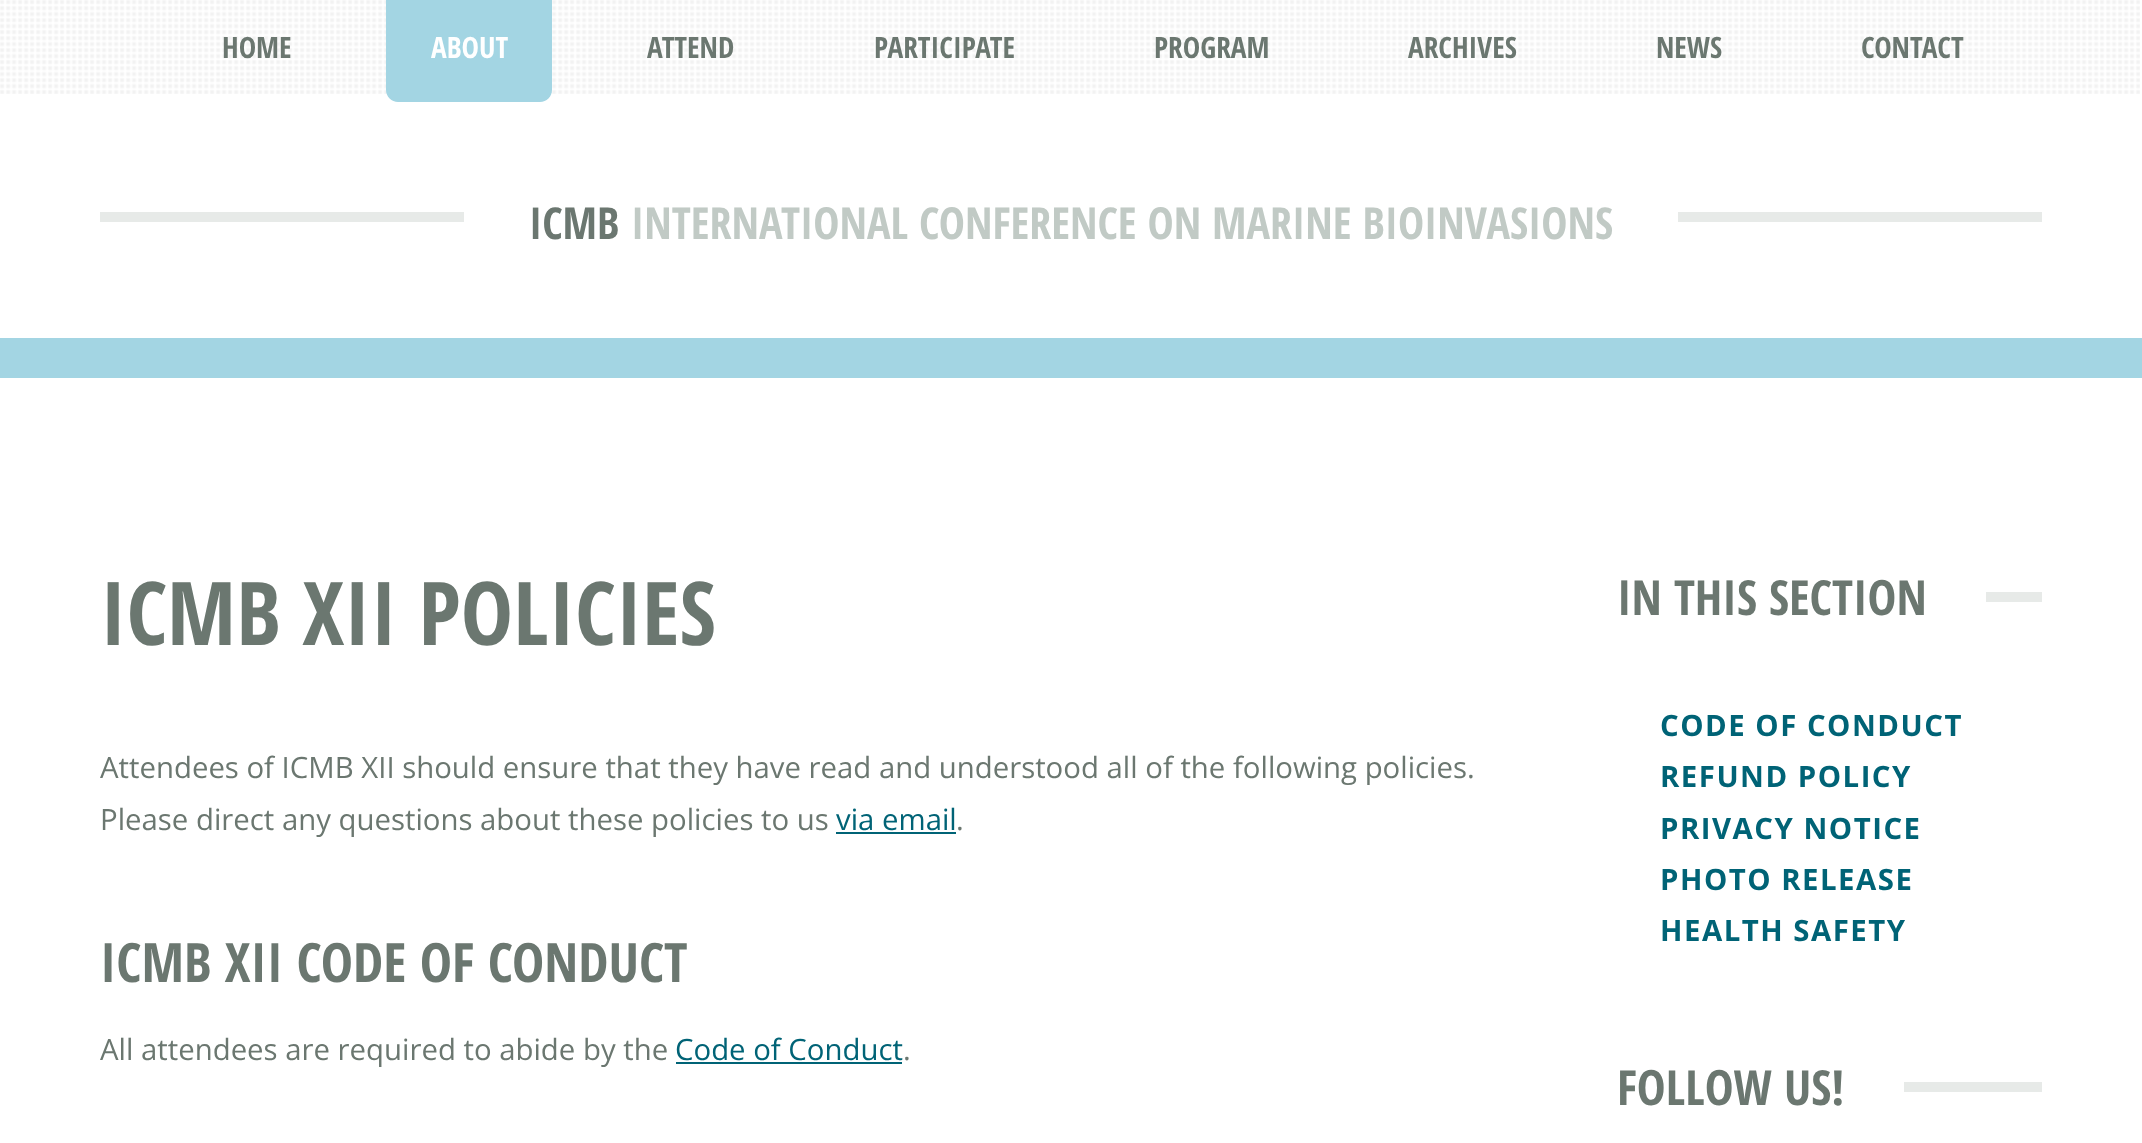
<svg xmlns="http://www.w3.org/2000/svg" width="2142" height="1143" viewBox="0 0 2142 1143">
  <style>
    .t1 { font: bold 29.35px Open Sans Condensed; fill: #6b7770; }
    .t2 { font: bold 29.35px Open Sans Condensed; fill: #fff; }
    .t3 { font: bold 44px Open Sans Condensed; fill: #6b7770; }
    .t4 { font: bold 44px Open Sans Condensed; fill: #c1cac5; }
    .t5 { font: bold 88px Open Sans Condensed; fill: #6b7770; }
    .t6 { font: 29.35px Open Sans; fill: #6b7770; }
    .t7 { font: 29.35px Open Sans; fill: #006376; }
    .t8 { font: bold 54.25px Open Sans Condensed; fill: #6b7770; }
    .t9 { font: bold 48.5px Open Sans Condensed; fill: #6b7770; }
    .t10 { font: bold 29.35px Open Sans; letter-spacing: 1.5px; fill: #006376; }
  </style>
  <rect width="100%" height="100%" fill="#fff"/>
  <image x="0" y="0" width="2140" height="94" href="images/1.png"/>
  <text x="222" y="58" class="t1">HOME</text>
  <path d="M386-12H552V90C552 96.5 546.5 102 540 102H398C391.5 102 386 96.5 386 90Z" fill="#a3d5e3"/>
  <text x="431" y="58" class="t2">ABOUT</text>
  <text x="647" y="58" class="t1">ATTEND</text>
  <text x="874" y="58" class="t1">PARTICIPATE</text>
  <text x="1154" y="58" class="t1">PROGRAM</text>
  <text x="1408" y="58" class="t1">ARCHIVES</text>
  <text x="1656" y="58" class="t1">NEWS</text>
  <text x="1861" y="58" class="t1">CONTACT</text>
  <rect x="100" y="212" width="1942" height="10" fill="#e7eae8"/>
  <rect x="464" y="212" width="1214" height="10" fill="#fff"/>
  <text x="529" y="239" class="t3">ICMB</text>
  <text x="631" y="239" class="t4">INTERNATIONAL CONFERENCE ON MARINE BIOINVASIONS</text>
  <rect x="0" y="338" width="2142" height="40" fill="#a3d5e3"/>
  <text x="100" y="645" class="t5">ICMB XII POLICIES</text>
  <text x="100" y="778" class="t6">Attendees of ICMB XII should ensure that they have read and understood all of the following policies.</text>
  <text x="100" y="830" class="t6">Please direct any questions about these policies to us</text>
  <text x="836" y="830" class="t7">via email</text>
  <rect x="836" y="832" width="120" height="2" fill="#006376"/>
  <text x="956" y="830" class="t6">.</text>
  <text x="100" y="982" class="t8">ICMB XII CODE OF CONDUCT</text>
  <text x="100" y="1060" class="t6">All attendees are required to abide by the</text>
  <text x="675" y="1060" class="t7">Code of Conduct</text>
  <rect x="676" y="1062" width="226" height="2" fill="#006376"/>
  <text x="903" y="1060" class="t6">.</text>
  <rect x="1986" y="592" width="56" height="10" fill="#e7eae8"/>
  <text x="1617" y="615" class="t9">IN THIS SECTION</text>
  <text x="1660" y="736" class="t10">CODE OF CONDUCT</text>
  <text x="1660" y="787" class="t10">REFUND POLICY</text>
  <text x="1660" y="839" class="t10">PRIVACY NOTICE</text>
  <text x="1660" y="890" class="t10">PHOTO RELEASE</text>
  <text x="1660" y="941" class="t10">HEALTH SAFETY</text>
  <rect x="1904" y="1082" width="138" height="10" fill="#e7eae8"/>
  <text x="1617" y="1105" class="t9">FOLLOW US!</text>
</svg>
